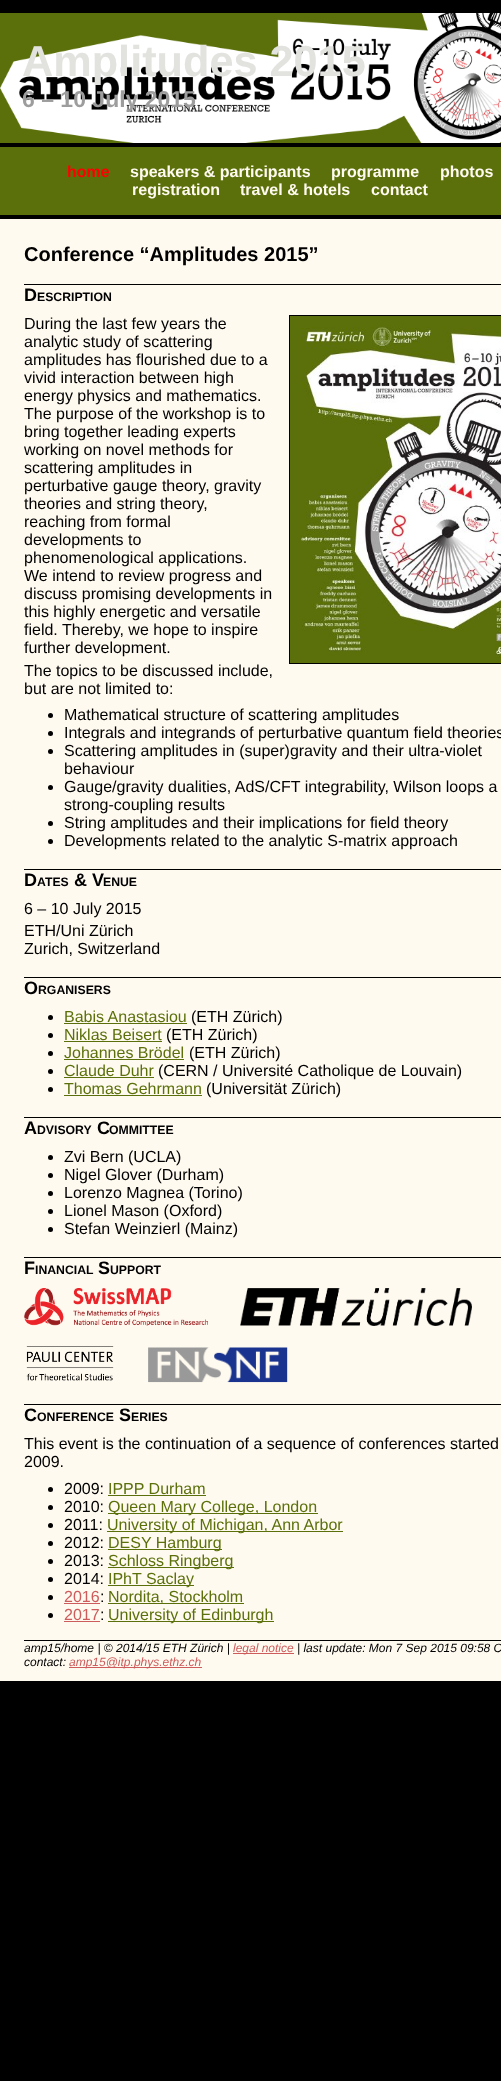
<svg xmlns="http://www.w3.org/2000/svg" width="501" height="2081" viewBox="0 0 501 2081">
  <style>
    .t1 { font: bold 43.25px Liberation Sans; fill: #e2e2df; }
    .t2 { font: bold 23px Liberation Sans; fill: #9d9d9d; }
    .t3 { font: bold 16px Liberation Sans; fill: #f00; }
    .t4 { font: bold 16px Liberation Sans; fill: #fffaf0; }
    .t5 { font: bold 20px Liberation Sans; fill: #000; }
    .t6 { font: bold 18px Liberation Sans; fill: #000; }
    .t7 { font: bold 12.25px Liberation Sans; fill: #000; }
    .t8 { font: 16px Liberation Sans; fill: #000; }
    .t9 { font: 16px Liberation Sans; fill: #5b700a; }
    .t10 { font: 16px Liberation Sans; fill: #cd5c5c; }
    .t11 { font: italic 12px Liberation Sans; fill: #000; }
    .t12 { font: italic 12px Liberation Sans; fill: #cd5c5c; }
  </style>
  <rect width="100%" height="100%" fill="#000"/>
  <image x="0" y="13" width="501" height="130" href="images/1.png"/>
  <text x="22" y="76" class="t1">Amplitudes 2015</text>
  <text x="22" y="107" class="t2">6 – 10 July 2015</text>
  <rect x="0" y="147" width="501" height="68" fill="#5b700a"/>
  <text x="67" y="177" class="t3">home</text>
  <text x="130" y="177" class="t4">speakers &amp; participants</text>
  <text x="331" y="177" class="t4">programme</text>
  <text x="440" y="177" class="t4">photos</text>
  <text x="132" y="195" class="t4">registration</text>
  <text x="240" y="195" class="t4">travel &amp; hotels</text>
  <text x="371" y="195" class="t4">contact</text>
  <rect x="0" y="219" width="501" height="1462" fill="#fffaf0"/>
  <text x="24" y="261" class="t5">Conference “Amplitudes 2015”</text>
  <rect x="24" y="284" width="477" height="1" fill="#000"/>
  <text x="24" y="301" class="t6">D</text>
  <text x="37" y="301" class="t7">ESCRIPTION</text>
  <text x="24" y="329" class="t8">During the last few years the</text>
  <text x="24" y="347" class="t8">analytic study of scattering</text>
  <text x="24" y="365" class="t8">amplitudes has flourished due to a</text>
  <text x="24" y="383" class="t8">vivid interaction between high</text>
  <text x="24" y="401" class="t8">energy physics and mathematics.</text>
  <text x="24" y="419" class="t8">The purpose of the workshop is to</text>
  <text x="24" y="437" class="t8">bring together leading experts</text>
  <text x="24" y="455" class="t8">working on novel methods for</text>
  <text x="24" y="473" class="t8">scattering amplitudes in</text>
  <text x="24" y="491" class="t8">perturbative gauge theory, gravity</text>
  <text x="24" y="509" class="t8">theories and string theory,</text>
  <text x="24" y="527" class="t8">reaching from formal</text>
  <text x="24" y="545" class="t8">developments to</text>
  <text x="24" y="563" class="t8">phenomenological applications.</text>
  <text x="24" y="581" class="t8">We intend to review progress and</text>
  <text x="24" y="599" class="t8">discuss promising developments in</text>
  <text x="24" y="617" class="t8">this highly energetic and versatile</text>
  <text x="24" y="635" class="t8">field. Thereby, we hope to inspire</text>
  <text x="24" y="653" class="t8">further development.</text>
  <rect x="289.5" y="315.5" width="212" height="348" fill="none" stroke="#000"/>
  <image x="290" y="316" width="211" height="347" href="images/2.png"/>
  <text x="24" y="676" class="t8">The topics to be discussed include,</text>
  <text x="24" y="694" class="t8">but are not limited to:</text>
  <circle cx="50.5" cy="715.5" r="2.5" fill="#000"/>
  <text x="64" y="720" class="t8">Mathematical structure of scattering amplitudes</text>
  <circle cx="50.5" cy="733.5" r="2.5" fill="#000"/>
  <text x="64" y="738" class="t8">Integrals and integrands of perturbative quantum field theories</text>
  <circle cx="50.5" cy="751.5" r="2.5" fill="#000"/>
  <text x="64" y="756" class="t8">Scattering amplitudes in (super)gravity and their ultra-violet</text>
  <text x="64" y="774" class="t8">behaviour</text>
  <circle cx="50.5" cy="787.5" r="2.5" fill="#000"/>
  <text x="64" y="792" class="t8">Gauge/gravity dualities, AdS/CFT integrability, Wilson loops a</text>
  <text x="64" y="810" class="t8">strong-coupling results</text>
  <circle cx="50.5" cy="823.5" r="2.5" fill="#000"/>
  <text x="64" y="828" class="t8">String amplitudes and their implications for field theory</text>
  <circle cx="50.5" cy="841.5" r="2.5" fill="#000"/>
  <text x="64" y="846" class="t8">Developments related to the analytic S-matrix approach</text>
  <rect x="24" y="869" width="477" height="1" fill="#000"/>
  <text x="24" y="886" class="t6">D</text>
  <text x="37" y="886" class="t7">ATES</text>
  <text x="74" y="886" class="t6">&amp; V</text>
  <text x="103" y="886" class="t7">ENUE</text>
  <text x="24" y="914" class="t8">6 – 10 July 2015</text>
  <text x="24" y="936" class="t8">ETH/Uni Zürich</text>
  <text x="24" y="954" class="t8">Zurich, Switzerland</text>
  <rect x="24" y="977" width="477" height="1" fill="#000"/>
  <text x="24" y="994" class="t6">O</text>
  <text x="38" y="994" class="t7">RGANISERS</text>
  <circle cx="50.5" cy="1017.5" r="2.5" fill="#000"/>
  <text x="64" y="1022" class="t9">Babis Anastasiou</text>
  <rect x="64" y="1023" width="123" height="1" fill="#5b700a"/>
  <text x="191" y="1022" class="t8">(ETH Zürich)</text>
  <circle cx="50.5" cy="1035.5" r="2.5" fill="#000"/>
  <text x="64" y="1040" class="t9">Niklas Beisert</text>
  <rect x="64" y="1041" width="98" height="1" fill="#5b700a"/>
  <text x="166" y="1040" class="t8">(ETH Zürich)</text>
  <circle cx="50.5" cy="1053.5" r="2.5" fill="#000"/>
  <text x="64" y="1058" class="t9">Johannes Brödel</text>
  <rect x="64" y="1059" width="120" height="1" fill="#5b700a"/>
  <text x="189" y="1058" class="t8">(ETH Zürich)</text>
  <circle cx="50.5" cy="1071.5" r="2.5" fill="#000"/>
  <text x="64" y="1076" class="t9">Claude Duhr</text>
  <rect x="64" y="1077" width="90" height="1" fill="#5b700a"/>
  <text x="158" y="1076" class="t8">(CERN / Université Catholique de Louvain)</text>
  <circle cx="50.5" cy="1089.5" r="2.5" fill="#000"/>
  <text x="64" y="1094" class="t9">Thomas Gehrmann</text>
  <rect x="64" y="1095" width="138" height="1" fill="#5b700a"/>
  <text x="206" y="1094" class="t8">(Universität Zürich)</text>
  <rect x="24" y="1117" width="477" height="1" fill="#000"/>
  <text x="24" y="1134" class="t6">A</text>
  <text x="37" y="1134" class="t7">DVISORY</text>
  <text x="97" y="1134" class="t6">C</text>
  <text x="109" y="1134" class="t7">OMMITTEE</text>
  <circle cx="50.5" cy="1157.5" r="2.5" fill="#000"/>
  <text x="64" y="1162" class="t8">Zvi Bern (UCLA)</text>
  <circle cx="50.5" cy="1175.5" r="2.5" fill="#000"/>
  <text x="64" y="1180" class="t8">Nigel Glover (Durham)</text>
  <circle cx="50.5" cy="1193.5" r="2.5" fill="#000"/>
  <text x="64" y="1198" class="t8">Lorenzo Magnea (Torino)</text>
  <circle cx="50.5" cy="1211.5" r="2.5" fill="#000"/>
  <text x="64" y="1216" class="t8">Lionel Mason (Oxford)</text>
  <circle cx="50.5" cy="1229.5" r="2.5" fill="#000"/>
  <text x="64" y="1234" class="t8">Stefan Weinzierl (Mainz)</text>
  <rect x="24" y="1257" width="477" height="1" fill="#000"/>
  <text x="24" y="1274" class="t6">F</text>
  <text x="35" y="1274" class="t7">INANCIAL</text>
  <text x="98" y="1274" class="t6">S</text>
  <text x="110" y="1274" class="t7">UPPORT</text>
  <image x="24" y="1288" width="184" height="38" href="images/3.png"/>
  <image x="240" y="1288" width="232" height="38" href="images/4.png"/>
  <image x="26" y="1346" width="88" height="35" href="images/5.png"/>
  <image x="148" y="1347" width="140" height="36" href="images/6.png"/>
  <rect x="24" y="1404" width="477" height="1" fill="#000"/>
  <text x="24" y="1421" class="t6">C</text>
  <text x="37" y="1421" class="t7">ONFERENCE</text>
  <text x="119" y="1421" class="t6">S</text>
  <text x="131" y="1421" class="t7">ERIES</text>
  <text x="24" y="1449" class="t8">This event is the continuation of a sequence of conferences started</text>
  <text x="24" y="1467" class="t8">2009.</text>
  <circle cx="50.5" cy="1489.5" r="2.5" fill="#000"/>
  <text x="64" y="1494" class="t8">2009:</text>
  <text x="108" y="1494" class="t9">IPPP Durham</text>
  <rect x="108" y="1495" width="98" height="1" fill="#5b700a"/>
  <circle cx="50.5" cy="1507.5" r="2.5" fill="#000"/>
  <text x="64" y="1512" class="t8">2010:</text>
  <rect x="108" y="1513" width="210" height="1" fill="#5b700a"/>
  <text x="108" y="1512" class="t9">Queen Mary College, London</text>
  <circle cx="50.5" cy="1525.5" r="2.5" fill="#000"/>
  <text x="64" y="1530" class="t8">2011:</text>
  <rect x="107" y="1531" width="236" height="1" fill="#5b700a"/>
  <text x="107" y="1530" class="t9">University of Michigan, Ann Arbor</text>
  <circle cx="50.5" cy="1543.5" r="2.5" fill="#000"/>
  <text x="64" y="1548" class="t8">2012:</text>
  <rect x="108" y="1549" width="114" height="1" fill="#5b700a"/>
  <text x="108" y="1548" class="t9">DESY Hamburg</text>
  <circle cx="50.5" cy="1561.5" r="2.5" fill="#000"/>
  <text x="64" y="1566" class="t8">2013:</text>
  <rect x="108" y="1567" width="126" height="1" fill="#5b700a"/>
  <text x="108" y="1566" class="t9">Schloss Ringberg</text>
  <circle cx="50.5" cy="1579.5" r="2.5" fill="#000"/>
  <text x="64" y="1584" class="t8">2014:</text>
  <rect x="108" y="1585" width="86" height="1" fill="#5b700a"/>
  <text x="108" y="1584" class="t9">IPhT Saclay</text>
  <circle cx="50.5" cy="1597.5" r="2.5" fill="#000"/>
  <text x="64" y="1602" class="t10">2016</text>
  <rect x="64" y="1603" width="36" height="1" fill="#cd5c5c"/>
  <text x="100" y="1602" class="t8">:</text>
  <rect x="108" y="1603" width="136" height="1" fill="#5b700a"/>
  <text x="108" y="1602" class="t9">Nordita, Stockholm</text>
  <circle cx="50.5" cy="1615.5" r="2.5" fill="#000"/>
  <text x="64" y="1620" class="t10">2017</text>
  <rect x="64" y="1621" width="36" height="1" fill="#cd5c5c"/>
  <text x="100" y="1620" class="t8">:</text>
  <rect x="108" y="1621" width="166" height="1" fill="#5b700a"/>
  <text x="108" y="1620" class="t9">University of Edinburgh</text>
  <rect x="24" y="1640" width="477" height="1" fill="#000"/>
  <text x="24" y="1652" class="t11">amp15/home | © 2014/15 ETH Zürich |</text>
  <rect x="233" y="1653" width="61" height="1" fill="#cd5c5c"/>
  <text x="233" y="1652" class="t12">legal notice</text>
  <text x="297" y="1652" class="t11">| last update: Mon 7 Sep 2015 09:58 C</text>
  <text x="24" y="1666" class="t11">contact:</text>
  <rect x="69" y="1667" width="133" height="1" fill="#cd5c5c"/>
  <text x="69" y="1666" class="t12">amp15@itp.phys.ethz.ch</text>
</svg>
